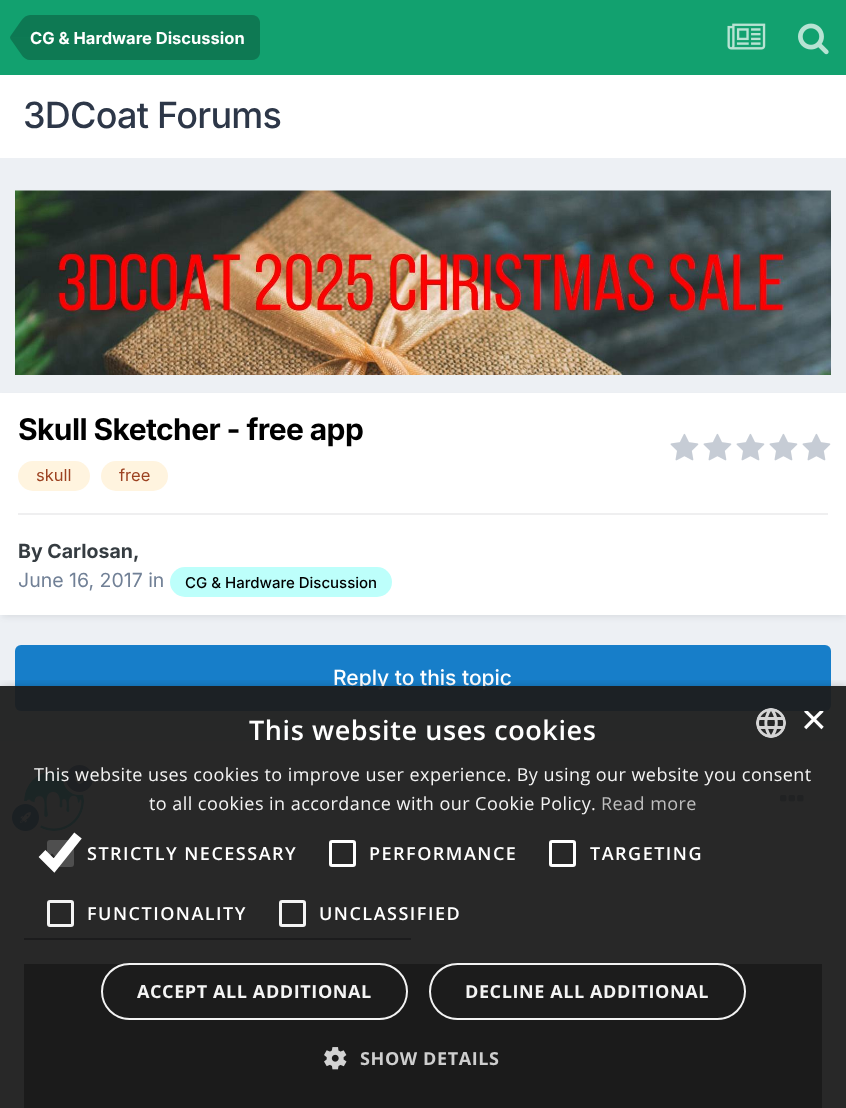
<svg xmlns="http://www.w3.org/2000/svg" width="846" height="1108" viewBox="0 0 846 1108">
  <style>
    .t1 { font: bold 16.5px Inter; fill: #fff; }
    .t2 { font: 500 36px Inter; letter-spacing: -0.75px; fill: #2d3748; }
    .t3 { font: bold 30px Inter; letter-spacing: -0.6px; fill: #000; }
    .t4 { font: 16.5px Inter; fill: #9c4221; }
    .t5 { font: bold 19.5px Inter; fill: #353c41; }
    .t6 { font: 19.5px Inter; fill: #718096; }
    .t7 { font: 500 15px Inter; fill: #000; }
    .t8 { font: 500 21px Inter; fill: #fff; }
    .t9 { font: 600 27px Open Sans; letter-spacing: 0.6px; fill: #fff; }
    .t10 { font: 44px Liberation Sans; fill: #fff; }
    .t11 { font: 18px Open Sans; letter-spacing: 0.45px; fill: #f4f4f4; }
    .t12 { font: 18px Open Sans; letter-spacing: 0.45px; fill: #bfbfbf; }
    .t13 { font: 600 18px Open Sans; letter-spacing: 1.5px; fill: #fff; }
    .t14 { font: bold 18px Open Sans; letter-spacing: 0.6px; fill: #f4f4f4; }
    .t15 { font: bold 18px Open Sans; letter-spacing: 0.6px; fill: #cecece; }
  </style>
  <defs>
    <clipPath id="clip1"><rect x="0" y="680" width="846" height="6"/></clipPath>
    <clipPath id="clip2"><rect x="801" y="711" width="23" height="23"/></clipPath>
  </defs>
  <rect width="100%" height="100%" fill="#edf0f4"/>
  <rect x="0" y="0" width="846" height="75" fill="#12a16f"/>
  <path d="M30 15H252C256.5 15 260 18.5 260 23V52C260 56.5 256.5 60 252 60H30Z" fill="#0e7953"/>
  <path d="M10.5 39L10 37.5H30V60C27 60 23.5 58 21 54Z" fill="#0e7953"/>
  <path d="M30 15V37.5H10L10.5 36L21 21C23.5 17 27 15 30 15Z" fill="#00000040"/>
  <text x="30" y="44" class="t1">CG &amp; Hardware Discussion</text>
  <image x="727" y="23" width="39" height="27" href="images/1.png"/>
  <image x="798" y="23" width="31" height="32" href="images/2.png"/>
  <rect x="0" y="75" width="846" height="83" fill="#fff"/>
  <text x="23" y="128" class="t2">3DCoat Forums</text>
  <image x="15" y="190" width="816" height="185" href="images/3.png"/>
  <rect x="2" y="398" width="843" height="219" fill="#2d37481a" filter="blur(3px)"/>
  <rect x="0" y="393" width="846" height="222" fill="#fff"/>
  <text x="18" y="440" class="t3">Skull Sketcher - free app</text>
  <rect x="18" y="461" width="72" height="30" rx="15" fill="#fff4df"/>
  <text x="36" y="481" class="t4">skull</text>
  <rect x="101" y="461" width="67" height="30" rx="15" fill="#fff4df"/>
  <text x="119" y="481" class="t4">free</text>
  <image x="670" y="433" width="29" height="28" href="images/4.png"/>
  <image x="703" y="433" width="29" height="28" href="images/4.png"/>
  <image x="736" y="433" width="29" height="28" href="images/4.png"/>
  <image x="769" y="433" width="29" height="28" href="images/4.png"/>
  <image x="802" y="433" width="29" height="28" href="images/4.png"/>
  <rect x="18" y="513" width="810" height="2" fill="#efeff0"/>
  <text x="18" y="558" class="t5">By Carlosan,</text>
  <text x="18" y="587" class="t6">June 16, 2017 in</text>
  <rect x="170" y="567" width="222" height="30" rx="15" fill="#bdfffb"/>
  <text x="185" y="588" class="t7">CG &amp; Hardware Discussion</text>
  <rect x="15" y="645" width="816" height="66" rx="6" fill="#177ec9"/>
  <text x="333" y="685" class="t8">Reply to this topic</text>
  <rect x="0" y="741" width="846" height="367" fill="#fff"/>
  <image x="24" y="771" width="60" height="60" href="images/6.png"/>
  <circle cx="79.5" cy="778.5" r="15" fill="#3d6594" stroke="#fff" stroke-width="3"/>
  <image x="75" y="772" width="10" height="12" href="images/5.png"/>
  <image x="12" y="801" width="30" height="30" href="images/7.png"/>
  <image x="780" y="795" width="24" height="7" href="images/8.png"/>
  <rect x="24" y="938" width="387" height="2" fill="#1a202c"/>
  <rect x="24" y="964" width="798" height="144" fill="#000"/>
  <g clip-path="url(#clip1)">
    <rect x="2" y="689" width="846" height="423" fill="#00000054" filter="blur(6px)"/>
  </g>
  <rect x="0" y="686" width="846" height="422" fill="#1c1c1cf2"/>
  <text x="249" y="740" class="t9">This website uses cookies</text>
  <image x="756" y="708" width="30" height="30" href="images/9.png"/>
  <g clip-path="url(#clip2)">
    <text x="801" y="734" class="t10">×</text>
  </g>
  <text x="34" y="781" class="t11">This website uses cookies to improve user experience. By using our website you consent</text>
  <text x="149" y="810" class="t11">to all cookies in accordance with our Cookie Policy.</text>
  <text x="601" y="810" class="t12">Read more</text>
  <rect x="47" y="840" width="27" height="27" rx="3" fill="#4f4f4f"/>
  <path d="M51 854.5L56.5 860L69.5 847" fill="none" stroke="#272727" stroke-width="2.7"/>
  <path d="M42 853.5L54 865.5L78 835.5" fill="none" stroke="#fff" stroke-width="9.6"/>
  <text x="87" y="860" class="t13">STRICTLY NECESSARY</text>
  <rect x="330.5" y="841.5" width="24" height="24" rx="1.5" fill="none" stroke="#fff" stroke-width="3"/>
  <text x="369" y="860" class="t13">PERFORMANCE</text>
  <rect x="550.5" y="841.5" width="24" height="24" rx="1.5" fill="none" stroke="#fff" stroke-width="3"/>
  <text x="590" y="860" class="t13">TARGETING</text>
  <rect x="48.5" y="901.5" width="24" height="24" rx="1.5" fill="none" stroke="#fffffff2" stroke-width="3"/>
  <text x="87" y="920" class="t13">FUNCTIONALITY</text>
  <rect x="280.5" y="901.5" width="24" height="24" rx="1.5" fill="none" stroke="#fffffff2" stroke-width="3"/>
  <text x="319" y="920" class="t13">UNCLASSIFIED</text>
  <rect x="101" y="963" width="307" height="57" rx="28.5" fill="#1c1c1cf2"/>
  <rect x="102" y="964" width="305" height="55" rx="27.5" fill="none" stroke="#fffffff2" stroke-width="2"/>
  <text x="137" y="998" class="t14">ACCEPT ALL ADDITIONAL</text>
  <rect x="429" y="963" width="317" height="57" rx="28.5" fill="#1c1c1cf2"/>
  <rect x="430" y="964" width="315" height="55" rx="27.5" fill="none" stroke="#fffffff2" stroke-width="2"/>
  <text x="465" y="998" class="t14">DECLINE ALL ADDITIONAL</text>
  <image x="324" y="1047" width="23" height="23" href="images/10.png"/>
  <text x="360" y="1065" class="t15">SHOW DETAILS</text>
</svg>
